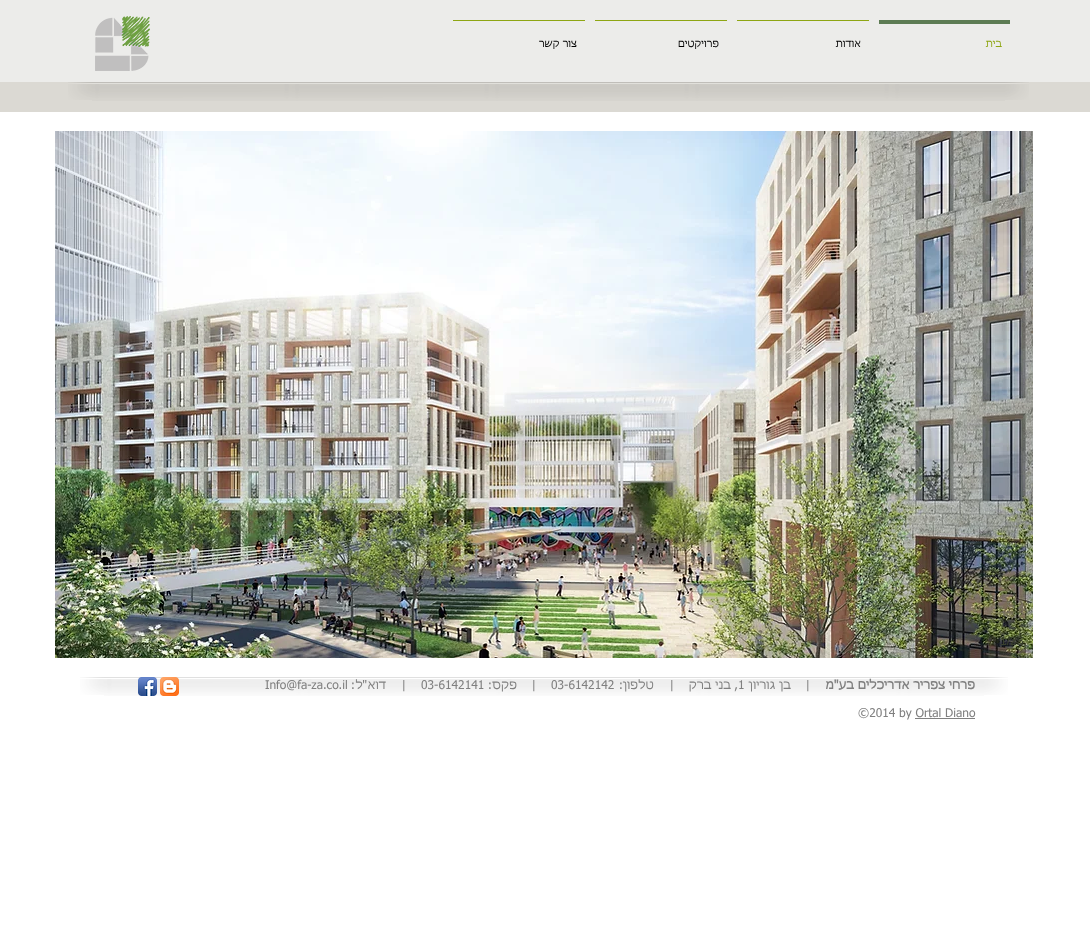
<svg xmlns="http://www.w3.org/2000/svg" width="1090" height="933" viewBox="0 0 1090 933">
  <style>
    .t1 { font: 10px 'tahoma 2'; direction: rtl; fill: #8ea613; }
    .t2 { font: 10px 'tahoma 2'; direction: rtl; fill: #000; }
    .t3 { font: 12px Liberation Sans; fill: #3a402f; }
    .t4 { font: bold 12px tahoma; direction: rtl; fill: #808080; }
    .t5 { font: 12px tahoma; direction: rtl; fill: #808080; }
    .t6 { font: 12px 'tahoma 2'; direction: rtl; fill: #808080; }
    .t7 { font: 12px tahoma; fill: #808080; }
  </style>
  <rect width="100%" height="100%" fill="#fff"/>
  <rect x="0" y="0" width="1090" height="82" fill="#ececea"/>
  <rect x="879" y="20" width="131" height="4" fill="#5d7c54"/>
  <text x="1002" y="47" class="t1">בית</text>
  <rect x="737" y="20" width="132" height="1" fill="#8ea613"/>
  <text x="861" y="47" class="t2">אודות</text>
  <rect x="595" y="20" width="132" height="1" fill="#8ea613"/>
  <text x="719" y="47" class="t2">פרויקטים</text>
  <rect x="453" y="20" width="132" height="1" fill="#8ea613"/>
  <text x="577" y="47" class="t2">צור קשר</text>
  <image x="95" y="16" width="55" height="55" href="images/1.png"/>
  <rect x="0" y="82" width="1090" height="30" fill="#dbd9d3"/>
  <image x="1005" y="82" width="24" height="18" href="images/2.png"/>
  <image x="92" y="82" width="913" height="19" href="images/3.png"/>
  <image x="68" y="82" width="24" height="18" href="images/4.png"/>
  <image x="55" y="131" width="978" height="527" href="images/5.png"/>
  <text x="1000" y="645" class="t3">1/25</text>
  <image x="984" y="677" width="24" height="18" href="images/6.png"/>
  <image x="104" y="677" width="880" height="19" href="images/7.png"/>
  <image x="80" y="677" width="24" height="18" href="images/8.png"/>
  <text x="975" y="689" class="t4">פרחי צפריר אדריכלים בע"מ</text>
  <text x="810" y="689" class="t5">|</text>
  <text x="791" y="689" class="t6">בן גוריון</text>
  <text x="738" y="689" class="t7">1</text>
  <text x="731" y="689" class="t6">בני ברק</text>
  <text x="674" y="689" class="t5">|</text>
  <text x="654" y="689" class="t6">טלפון</text>
  <text x="623" y="689" class="t5">:</text>
  <text x="551" y="689" class="t7">03-6142142</text>
  <text x="536" y="689" class="t5">|</text>
  <text x="517" y="689" class="t6">פקס</text>
  <text x="492" y="689" class="t5">:</text>
  <text x="421" y="689" class="t7">03-6142141</text>
  <text x="406" y="689" class="t5">|</text>
  <text x="386" y="689" class="t6">דוא</text>
  <text x="367" y="689" class="t5">"</text>
  <text x="363" y="689" class="t6">ל</text>
  <text x="355" y="689" class="t5">:</text>
  <text x="265" y="689" class="t7">Info@fa-za.co.il</text>
  <text x="738" y="689" class="t5">,</text>
  <text x="858" y="717" class="t7">©2014 by Ortal Diano</text>
  <rect x="915" y="718" width="60" height="1" fill="#808080"/>
  <image x="160" y="677" width="19" height="19" href="images/9.png"/>
  <image x="138" y="677" width="19" height="19" href="images/10.png"/>
</svg>
